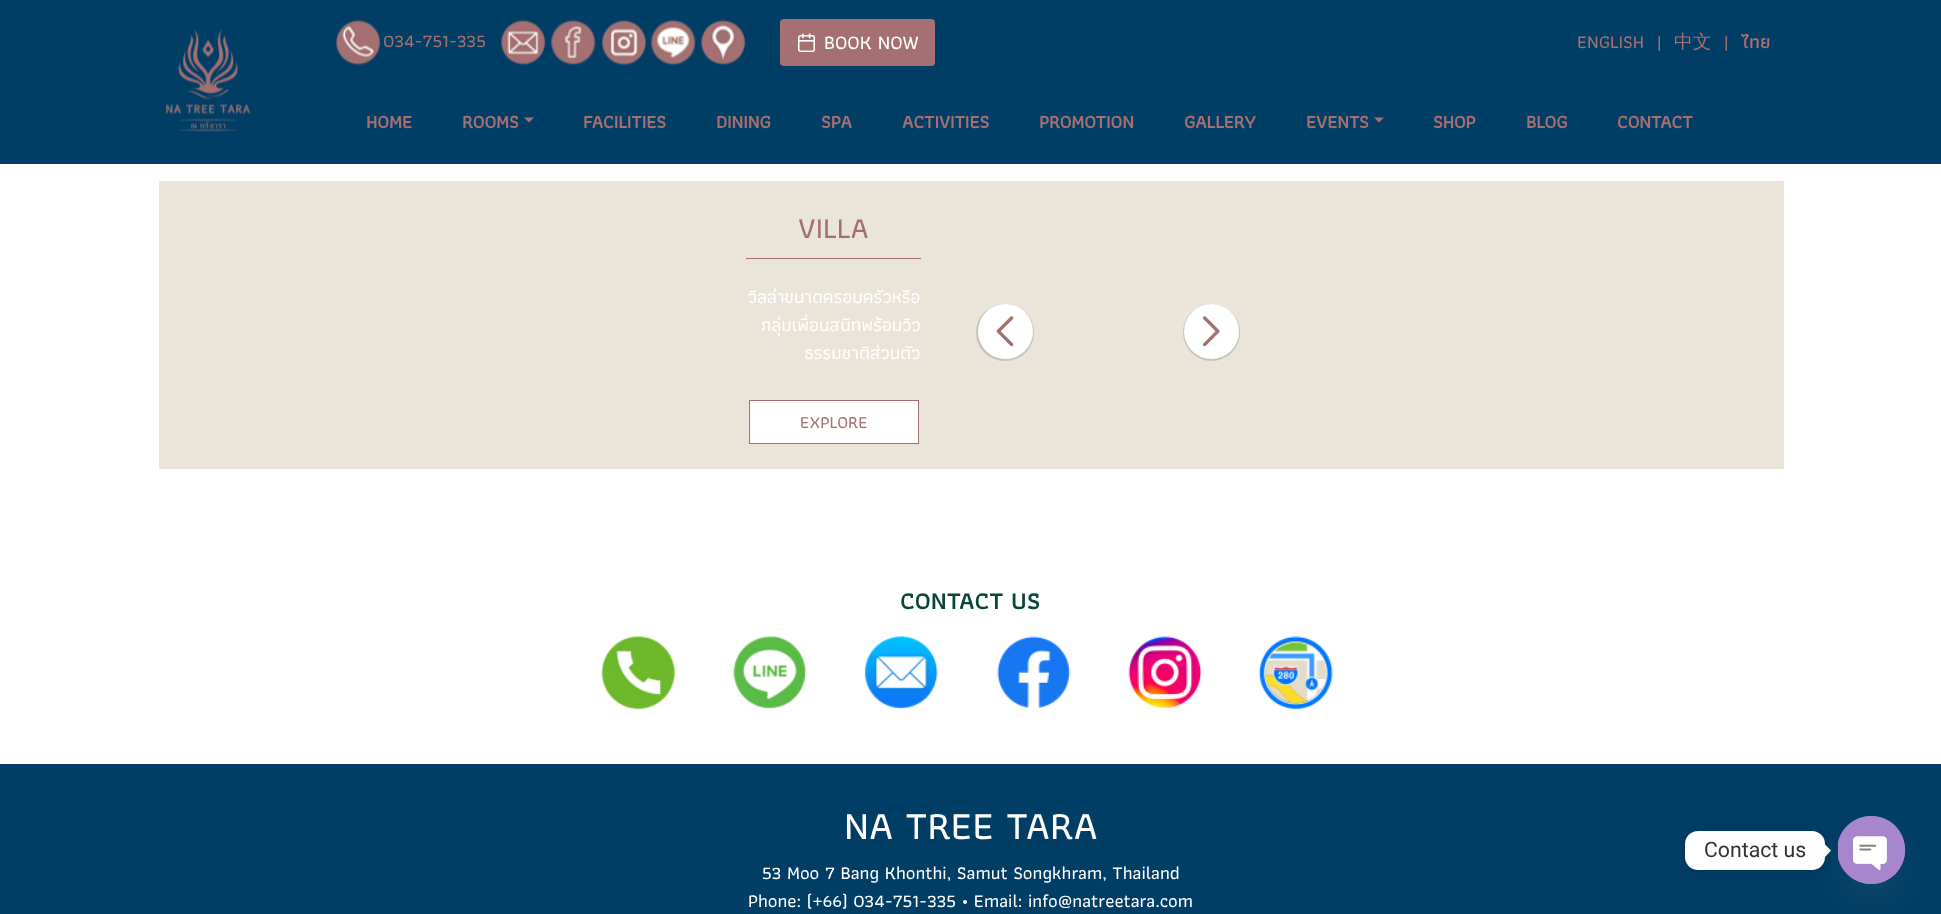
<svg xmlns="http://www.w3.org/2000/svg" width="1941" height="914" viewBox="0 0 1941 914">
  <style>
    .t1 { font: 500 18.75px Athiti; fill: #a57071; }
    .t2 { font: 500 20px Athiti; fill: #fff; }
    .t3 { font: 500 18.75px WenQuanYi Zen Hei; fill: #a57071; }
    .t4 { font: 600 18.75px Athiti; fill: #a57071; }
    .t5 { font: bold 18.75px Athiti; fill: #a57071; }
    .t6 { font: 500 30px Athiti; fill: #a57071; }
    .t7 { font: 500 18.75px Athiti; fill: #fff; }
    .t8 { font: 500 17.5px Athiti; fill: #a57071; }
    .t9 { font: 600 25px Athiti; fill: #0a4637; }
    .t10 { font: 500 40px Athiti; fill: #fff; }
    .t11 { font: 21.25px Roboto; fill: #333; }
  </style>
  <rect width="100%" height="100%" fill="#fff"/>
  <rect x="0" y="0" width="1941" height="164" fill="#003e65"/>
  <image x="166" y="29" width="85" height="103" href="images/1.png"/>
  <image x="336" y="19" width="45" height="47" href="images/2.png"/>
  <text x="383" y="47" class="t1">034-751-335</text>
  <image x="501" y="19" width="45" height="47" href="images/3.png"/>
  <image x="550" y="19" width="46" height="47" href="images/4.png"/>
  <image x="601" y="19" width="46" height="47" href="images/5.png"/>
  <image x="650" y="19" width="46" height="47" href="images/6.png"/>
  <image x="701" y="19" width="45" height="47" href="images/7.png"/>
  <rect x="780" y="19" width="155" height="47" rx="4" fill="#a57071"/>
  <image x="797" y="33" width="18" height="19" href="images/8.png"/>
  <text x="824" y="49" class="t2">BOOK NOW</text>
  <text x="1577" y="48" class="t1">ENGLISH</text>
  <text x="1657" y="48" class="t1">|</text>
  <text x="1674" y="48" class="t3">中文</text>
  <text x="1724" y="48" class="t1">|</text>
  <text x="1741" y="48" class="t4">ไทย</text>
  <text x="366" y="128" class="t5">HOME</text>
  <text x="462" y="128" class="t5">ROOMS</text>
  <path d="M524 117.5H534L529 122.5Z" fill="#a57071"/>
  <text x="583" y="128" class="t5">FACILITIES</text>
  <text x="716" y="128" class="t5">DINING</text>
  <text x="821" y="128" class="t5">SPA</text>
  <text x="902" y="128" class="t5">ACTIVITIES</text>
  <text x="1039" y="128" class="t5">PROMOTION</text>
  <text x="1184" y="128" class="t5">GALLERY</text>
  <text x="1306" y="128" class="t5">EVENTS</text>
  <path d="M1374 117.5H1384L1379 122.5Z" fill="#a57071"/>
  <text x="1433" y="128" class="t5">SHOP</text>
  <text x="1526" y="128" class="t5">BLOG</text>
  <text x="1617" y="128" class="t5">CONTACT</text>
  <rect x="159" y="181" width="1625" height="288" fill="#ebe4d9"/>
  <rect x="746" y="258" width="175" height="1" fill="#a57071"/>
  <text x="798" y="238" class="t6">VILLA</text>
  <text x="748" y="303" class="t7">วิลล่าขนาดครอบครัวหรือ</text>
  <text x="761" y="331" class="t7">กลุ่มเพื่อนสนิทพร้อมวิว</text>
  <text x="804" y="359" class="t7">ธรรมชาติส่วนตัว</text>
  <rect x="749.5" y="400.5" width="169" height="43" fill="#fff" stroke="#a57071"/>
  <text x="800" y="428" class="t8">EXPLORE</text>
  <rect x="976" y="304" width="58" height="57" rx="28.5" fill="#00000024" filter="blur(0.5px)"/>
  <circle cx="1005.5" cy="331.5" r="27.5" fill="#fff"/>
  <image x="996" y="316" width="18" height="30" href="images/9.png"/>
  <rect x="1183" y="304" width="57" height="57" rx="28.5" fill="#00000024" filter="blur(0.5px)"/>
  <circle cx="1211.5" cy="331.5" r="27.5" fill="#fff"/>
  <image x="1202" y="316" width="18" height="30" href="images/10.png"/>
  <text x="900" y="609" class="t9">CONTACT US</text>
  <image x="601" y="636" width="75" height="74" href="images/11.png"/>
  <image x="733" y="636" width="74" height="73" href="images/12.png"/>
  <image x="864" y="636" width="74" height="73" href="images/13.png"/>
  <image x="997" y="636" width="74" height="72" href="images/14.png"/>
  <image x="1128" y="636" width="74" height="73" href="images/15.png"/>
  <image x="1258" y="636" width="75" height="74" href="images/16.png"/>
  <rect x="0" y="764" width="1941" height="150" fill="#003e65"/>
  <text x="844" y="839" class="t10">NA TREE TARA</text>
  <text x="762" y="879" class="t7">53 Moo 7 Bang Khonthi, Samut Songkhram, Thailand</text>
  <text x="748" y="907" class="t7">Phone: (+66) 034-751-335 • Email: info@natreetara.com</text>
  <rect x="1685" y="833" width="140" height="38" rx="13" fill="#00000026" filter="blur(5px)"/>
  <rect x="1685" y="831" width="140" height="39" rx="13" fill="#fff"/>
  <text x="1704" y="857" class="t11">Contact us</text>
  <path d="M1825 857V844.5L1831 850.5Z" fill="#fff"/>
  <rect x="1838" y="836" width="67" height="68" rx="33.5" fill="#49687e29" filter="blur(15px)"/>
  <rect x="1838" y="816" width="67" height="68" rx="33.5" fill="#a886cd"/>
  <image x="1838" y="816" width="67" height="68" href="images/17.png"/>
</svg>
